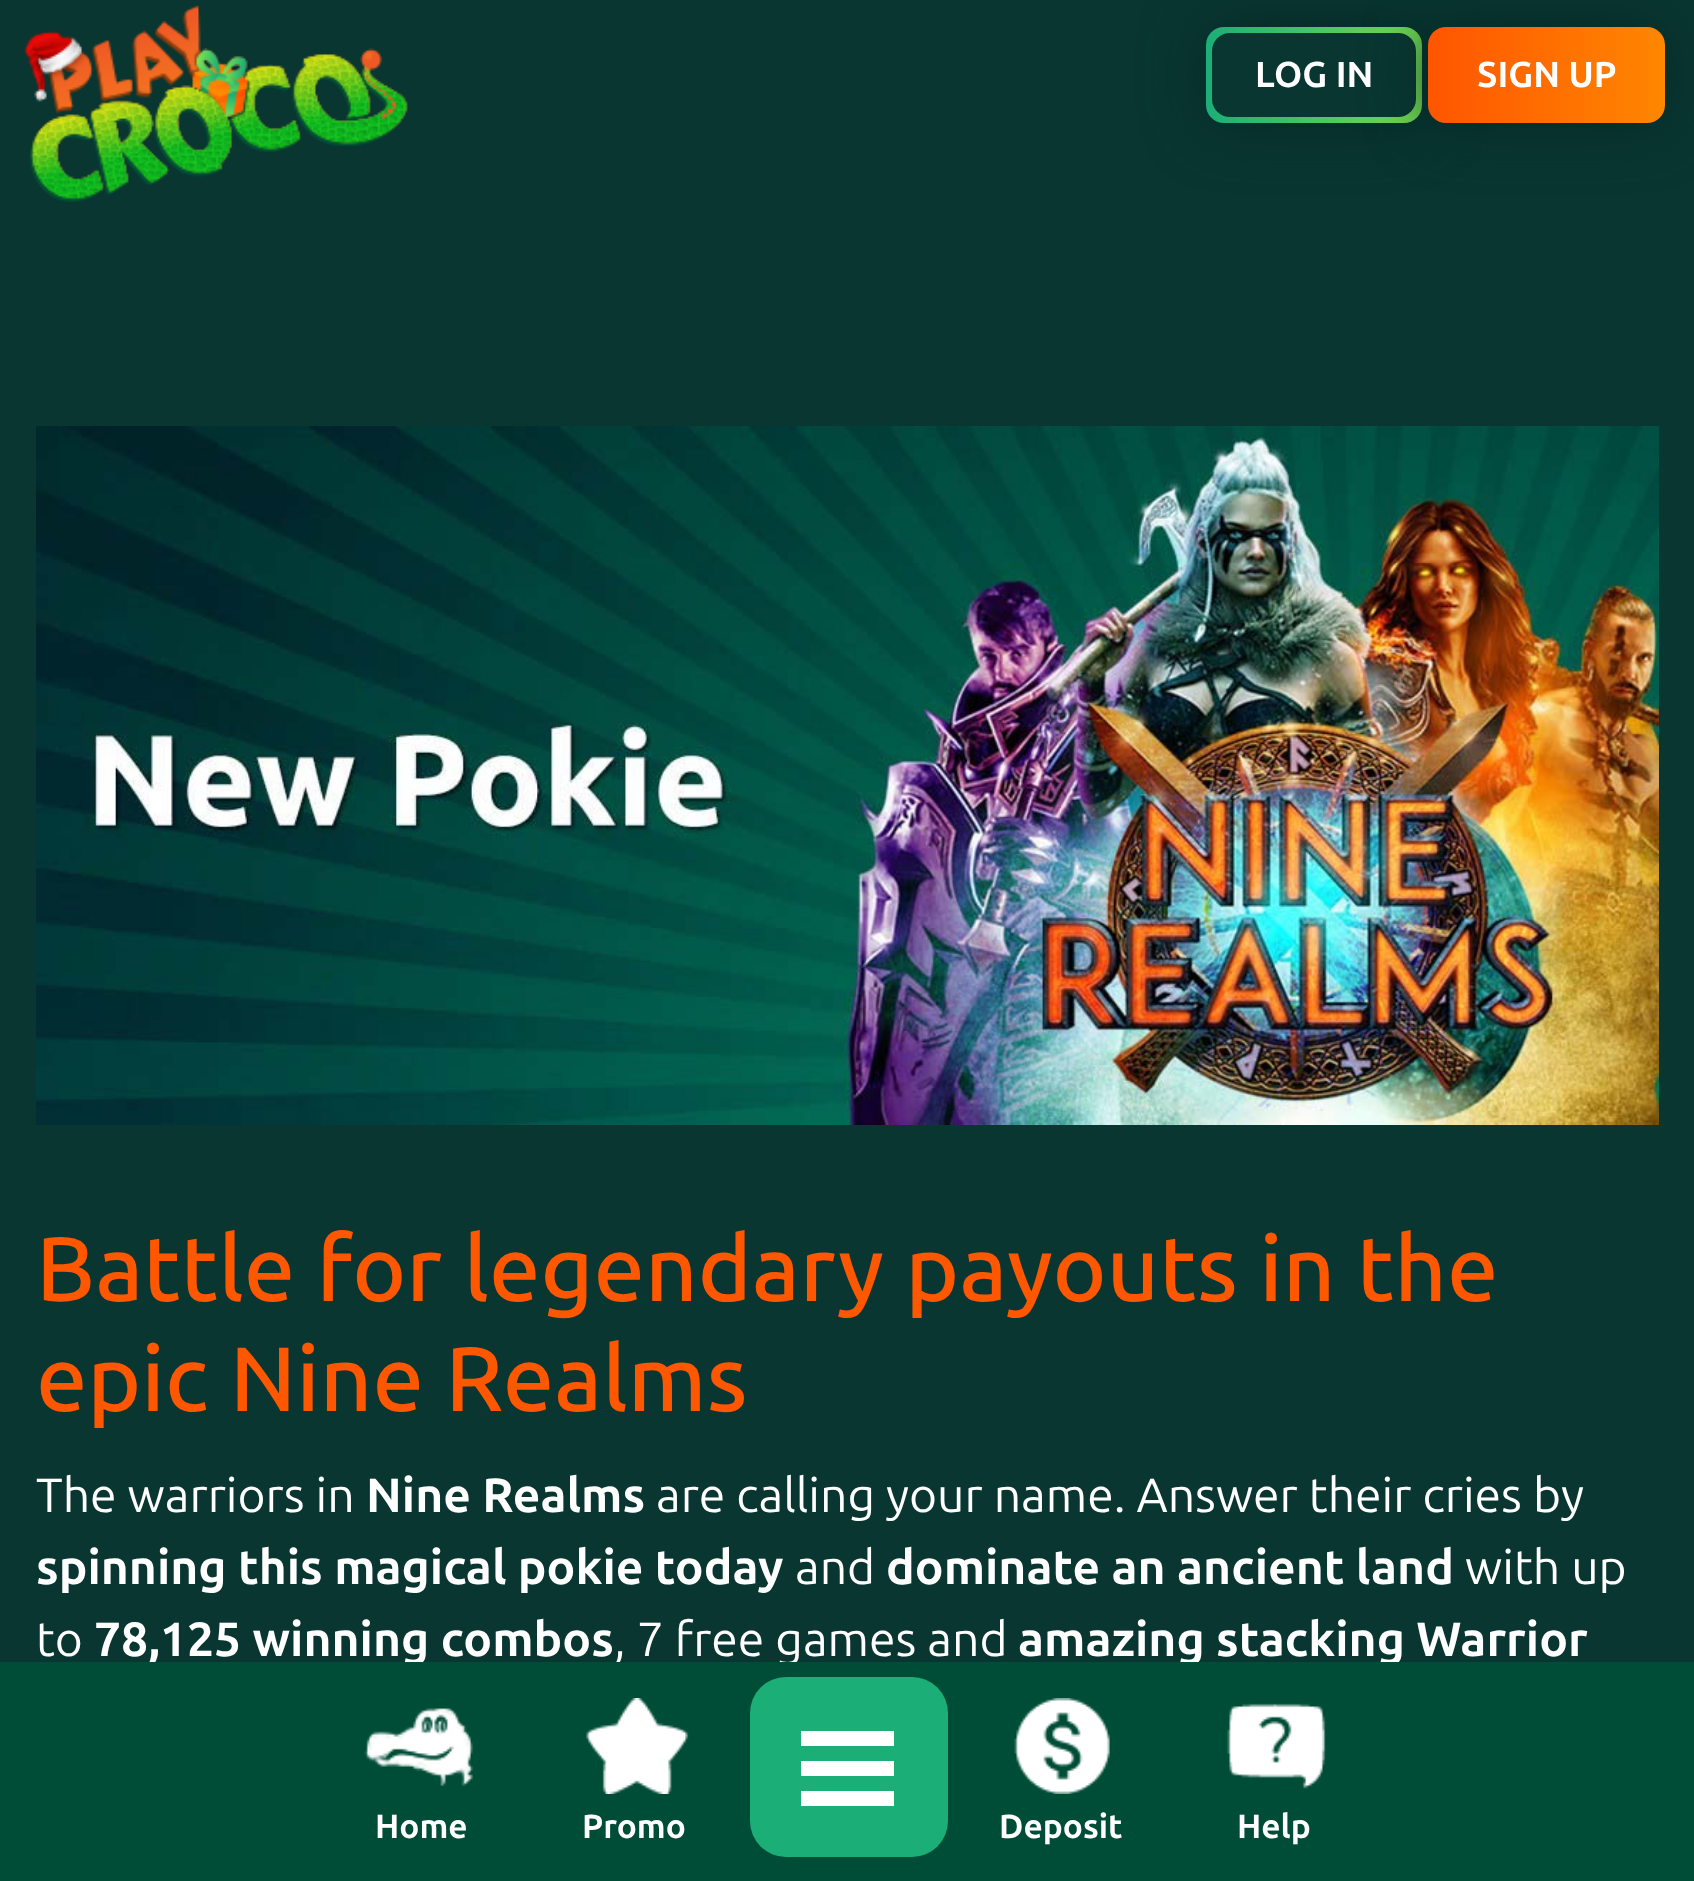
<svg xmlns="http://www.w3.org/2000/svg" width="1694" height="1881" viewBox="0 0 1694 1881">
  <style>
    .t1 { font: bold 36px Ubuntu; fill: #fff; }
    .t2 { font: 500 91.4px Ubuntu; fill: #ff5700; }
    .t3 { font: 48px Ubuntu; fill: #fff; }
    .t4 { font: bold 48px Ubuntu; fill: #fff; }
    .t5 { font: bold 33.5px Ubuntu; fill: #fff; }
  </style>
  <defs>
    <linearGradient id="g1" gradientUnits="userSpaceOnUse" x1="1206" y1="75" x2="1422" y2="75"><stop offset="0" stop-color="#1bae77"/><stop offset="1" stop-color="#76dc52"/></linearGradient>
    <linearGradient id="g2" gradientUnits="userSpaceOnUse" x1="1428" y1="75" x2="1665" y2="75"><stop offset="0" stop-color="#f50"/><stop offset="1" stop-color="#ff8700"/></linearGradient>
  </defs>
  <rect width="100%" height="100%" fill="#093631"/>
  <image x="24" y="5" width="384" height="198" href="images/1.png"/>
  <rect x="1206" y="27" width="216" height="96" rx="18" fill="#042826" filter="blur(30px)"/>
  <rect x="1206" y="27" width="216" height="96" rx="18" fill="url(#g1)"/>
  <rect x="1212" y="33" width="204" height="84" rx="18" fill="#093631"/>
  <text x="1255" y="87" class="t1">LOG IN</text>
  <rect x="1428" y="27" width="237" height="96" rx="18" fill="#042826" filter="blur(30px)"/>
  <rect x="1428" y="27" width="237" height="96" rx="18" fill="url(#g2)"/>
  <text x="1477" y="87" class="t1">SIGN UP</text>
  <image x="36" y="426" width="1623" height="699" href="images/2.png"/>
  <text x="36" y="1301" class="t2">Battle for legendary payouts in the</text>
  <text x="36" y="1411" class="t2">epic Nine Realms</text>
  <text x="36" y="1512" class="t3">The warriors in</text>
  <text x="366" y="1512" class="t4">Nine Realms</text>
  <text x="656" y="1512" class="t3">are calling your name. Answer their cries by</text>
  <text x="36" y="1584" class="t4">spinning this magical pokie today</text>
  <text x="795" y="1584" class="t3">and</text>
  <text x="886" y="1584" class="t4">dominate an ancient land</text>
  <text x="1465" y="1584" class="t3">with up</text>
  <text x="36" y="1656" class="t3">to</text>
  <text x="94" y="1656" class="t4">78,125 winning combos</text>
  <text x="614" y="1656" class="t3">, 7 free games and</text>
  <text x="1018" y="1656" class="t4">amazing stacking Warrior</text>
  <rect x="0" y="1662" width="1694" height="219" fill="#004d37"/>
  <rect x="750" y="1677" width="198" height="180" rx="36" fill="#1bae77"/>
  <rect x="801" y="1731" width="93" height="15" fill="#fff"/>
  <rect x="801" y="1761" width="93" height="15" fill="#fff"/>
  <rect x="801" y="1791" width="93" height="15" fill="#fff"/>
  <image x="364" y="1708" width="110" height="79" href="images/3.png"/>
  <text x="375" y="1838" class="t5">Home</text>
  <image x="586" y="1698" width="103" height="96" href="images/4.png"/>
  <text x="582" y="1838" class="t5">Promo</text>
  <image x="1014" y="1698" width="96" height="96" href="images/5.png"/>
  <text x="999" y="1838" class="t5">Deposit</text>
  <image x="1227" y="1703" width="99" height="86" href="images/6.png"/>
  <text x="1237" y="1838" class="t5">Help</text>
</svg>
